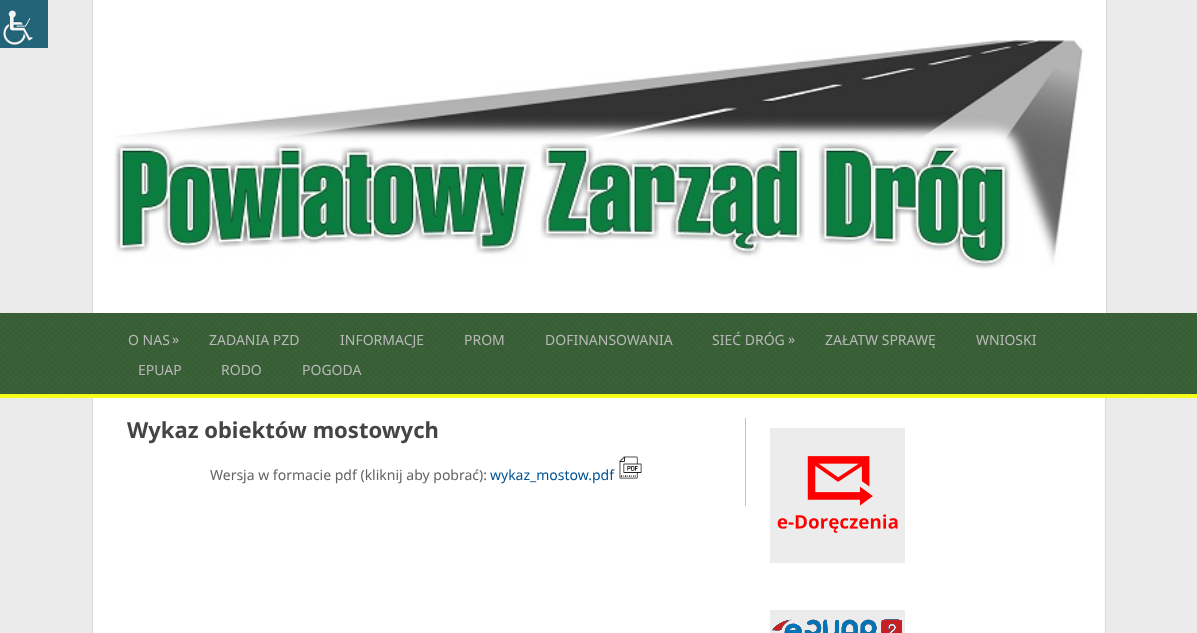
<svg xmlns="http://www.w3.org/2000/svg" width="1197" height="633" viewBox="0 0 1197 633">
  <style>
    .t1 { font: 14px Noto Sans; fill: #b8b8b8; }
    .t2 { font: bold 22px Noto Sans; fill: #444; }
    .t3 { font: 14px Noto Sans; fill: #646464; }
    .t4 { font: 14px Noto Sans; fill: #005294; }
  </style>
  <rect width="100%" height="100%" fill="#ebebeb"/>
  <image x="0" y="0" width="48" height="48" href="images/1.png"/>
  <rect x="93" y="0" width="1013" height="313" fill="#fff"/>
  <rect x="1106" y="0" width="1" height="313" fill="#d9d9d9"/>
  <rect x="92" y="0" width="1" height="313" fill="#d9d9d9"/>
  <image x="114" y="40" width="970" height="229" href="images/2.png"/>
  <image x="0" y="313" width="1197" height="81" href="images/3.png"/>
  <rect x="0" y="394" width="1197" height="4" fill="#f3ff1b"/>
  <text x="128" y="345" class="t1">O NAS</text>
  <text x="172" y="344" class="t1">»</text>
  <text x="209" y="345" class="t1">ZADANIA PZD</text>
  <text x="340" y="345" class="t1">INFORMACJE</text>
  <text x="464" y="345" class="t1">PROM</text>
  <text x="545" y="345" class="t1">DOFINANSOWANIA</text>
  <text x="712" y="345" class="t1">SIEĆ DRÓG</text>
  <text x="788" y="344" class="t1">»</text>
  <text x="825" y="345" class="t1">ZAŁATW SPRAWĘ</text>
  <text x="976" y="345" class="t1">WNIOSKI</text>
  <text x="138" y="375" class="t1">EPUAP</text>
  <text x="221" y="375" class="t1">RODO</text>
  <text x="302" y="375" class="t1">POGODA</text>
  <rect x="93" y="398" width="1012" height="235" fill="#fff"/>
  <rect x="1105" y="398" width="1" height="235" fill="#d9d9d9"/>
  <rect x="92" y="398" width="1" height="235" fill="#d9d9d9"/>
  <rect x="745" y="418" width="1" height="88" fill="#c2c2c2"/>
  <text x="127" y="438" class="t2">Wykaz obiektów mostowych</text>
  <text x="210" y="480" class="t3">Wersja w formacie pdf (kliknij aby pobrać):</text>
  <text x="490" y="480" class="t4">wykaz_mostow.pdf</text>
  <image x="619" y="456" width="23" height="23" href="images/4.png"/>
  <image x="770" y="428" width="135" height="135" href="images/5.png"/>
  <image x="770" y="610" width="135" height="23" href="images/6.png"/>
</svg>
